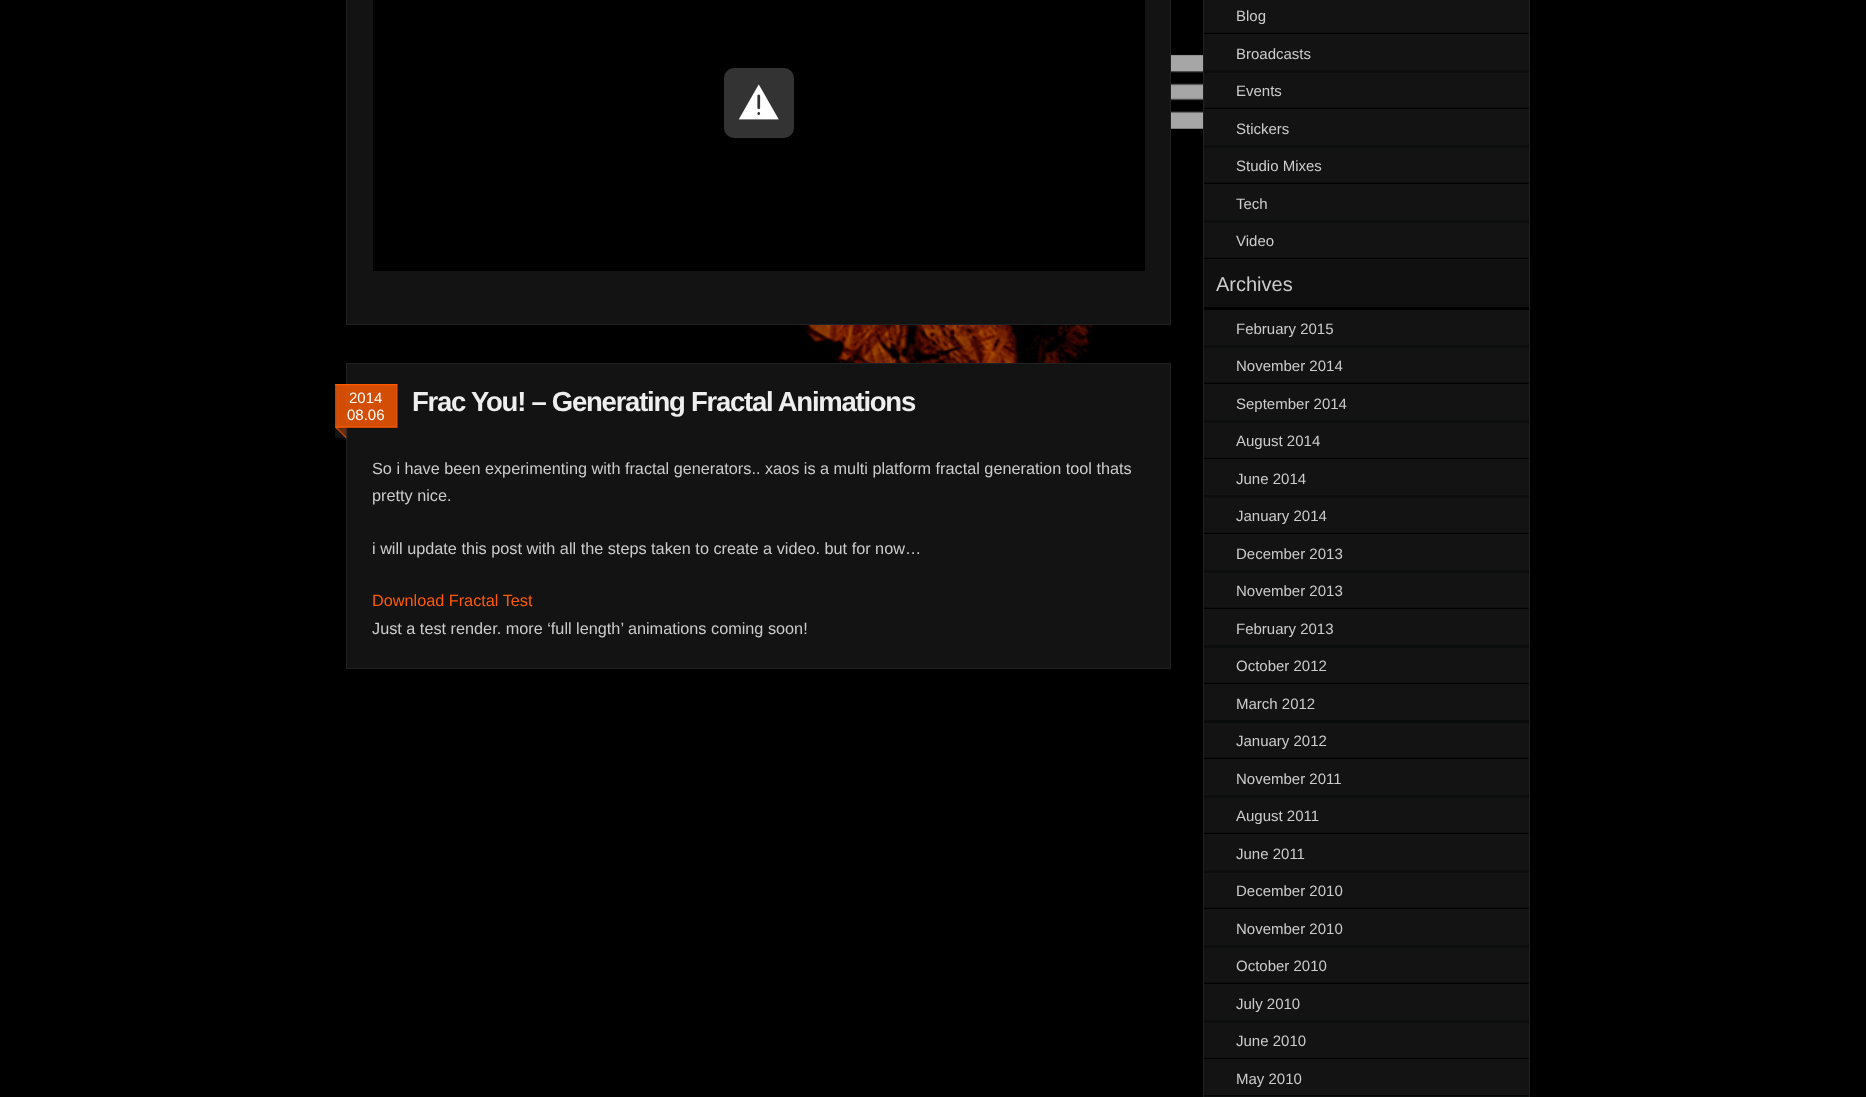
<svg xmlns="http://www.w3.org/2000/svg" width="1866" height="1097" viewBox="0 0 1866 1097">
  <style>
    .t1 { font: 15px Liberation Sans; fill: #fff; }
    .t2 { font: bold 27.5px Liberation Sans; letter-spacing: -1.25px; fill: #eee; }
    .t3 { font: 16.25px Liberation Sans; fill: #ccc; }
    .t4 { font: 16.25px Liberation Sans; fill: #ff5a00; }
    .t5 { font: 15px Liberation Sans; fill: #ccc; }
    .t6 { font: 20px Liberation Sans; fill: #ccc; }
  </style>
  <rect width="100%" height="100%" fill="#000"/>
  <image x="506" y="24" width="697" height="458" href="images/1.png"/>
  <rect x="346.5" y="-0.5" width="824" height="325" fill="#131313" stroke="#1f2223"/>
  <rect x="373" y="0" width="772" height="271" fill="#000"/>
  <rect x="724" y="68" width="70" height="70" rx="10" fill="#333"/>
  <image x="738" y="84" width="41" height="36" href="images/2.png"/>
  <rect x="346.5" y="363.5" width="824" height="305" fill="#131313" stroke="#1f2223"/>
  <image x="335" y="384" width="63" height="54" href="images/3.png"/>
  <text x="349" y="403" class="t1">2014</text>
  <text x="347" y="420" class="t1">08.06</text>
  <text x="412" y="411" class="t2">Frac You! – Generating Fractal Animations</text>
  <text x="372" y="474" class="t3">So i have been experimenting with fractal generators.. xaos is a multi platform fractal generation tool thats</text>
  <text x="372" y="501" class="t3">pretty nice.</text>
  <text x="372" y="554" class="t3">i will update this post with all the steps taken to create a video. but for now…</text>
  <text x="372" y="606" class="t4">Download Fractal Test</text>
  <text x="372" y="634" class="t3">Just a test render. more ‘full length’ animations coming soon!</text>
  <rect x="1204" y="310" width="325" height="787" fill="#131313"/>
  <rect x="1203.5" y="-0.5" width="326" height="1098" fill="none" stroke="#1f2223"/>
  <rect x="1204" y="0" width="325" height="260" fill="#131313"/>
  <image x="1204" y="32" width="325" height="2" href="images/4.png"/>
  <text x="1236" y="21" class="t5">Blog</text>
  <rect x="1204" y="70" width="325" height="3" fill="#0c0d0d"/>
  <text x="1236" y="59" class="t5">Broadcasts</text>
  <image x="1204" y="107" width="325" height="2" href="images/4.png"/>
  <text x="1236" y="96" class="t5">Events</text>
  <rect x="1204" y="145" width="325" height="3" fill="#0c0d0d"/>
  <text x="1236" y="134" class="t5">Stickers</text>
  <image x="1204" y="182" width="325" height="2" href="images/4.png"/>
  <text x="1236" y="171" class="t5">Studio Mixes</text>
  <rect x="1204" y="220" width="325" height="3" fill="#0c0d0d"/>
  <text x="1236" y="209" class="t5">Tech</text>
  <image x="1204" y="257" width="325" height="2" href="images/4.png"/>
  <text x="1236" y="246" class="t5">Video</text>
  <rect x="1204" y="260" width="325" height="47" fill="#101010"/>
  <text x="1216" y="291" class="t6">Archives</text>
  <rect x="1204" y="345" width="325" height="3" fill="#0c0d0d"/>
  <text x="1236" y="334" class="t5">February 2015</text>
  <image x="1204" y="382" width="325" height="2" href="images/4.png"/>
  <text x="1236" y="371" class="t5">November 2014</text>
  <rect x="1204" y="420" width="325" height="3" fill="#0c0d0d"/>
  <text x="1236" y="409" class="t5">September 2014</text>
  <image x="1204" y="457" width="325" height="2" href="images/4.png"/>
  <text x="1236" y="446" class="t5">August 2014</text>
  <rect x="1204" y="495" width="325" height="3" fill="#0c0d0d"/>
  <text x="1236" y="484" class="t5">June 2014</text>
  <image x="1204" y="532" width="325" height="2" href="images/4.png"/>
  <text x="1236" y="521" class="t5">January 2014</text>
  <rect x="1204" y="570" width="325" height="3" fill="#0c0d0d"/>
  <text x="1236" y="559" class="t5">December 2013</text>
  <image x="1204" y="607" width="325" height="2" href="images/4.png"/>
  <text x="1236" y="596" class="t5">November 2013</text>
  <rect x="1204" y="645" width="325" height="3" fill="#0c0d0d"/>
  <text x="1236" y="634" class="t5">February 2013</text>
  <image x="1204" y="682" width="325" height="2" href="images/4.png"/>
  <text x="1236" y="671" class="t5">October 2012</text>
  <rect x="1204" y="720" width="325" height="3" fill="#0a0b0b"/>
  <text x="1236" y="709" class="t5">March 2012</text>
  <image x="1204" y="757" width="325" height="2" href="images/4.png"/>
  <text x="1236" y="746" class="t5">January 2012</text>
  <rect x="1204" y="795" width="325" height="3" fill="#0c0d0d"/>
  <text x="1236" y="784" class="t5">November 2011</text>
  <image x="1204" y="832" width="325" height="2" href="images/4.png"/>
  <text x="1236" y="821" class="t5">August 2011</text>
  <rect x="1204" y="870" width="325" height="3" fill="#0c0d0d"/>
  <text x="1236" y="859" class="t5">June 2011</text>
  <image x="1204" y="907" width="325" height="2" href="images/4.png"/>
  <text x="1236" y="896" class="t5">December 2010</text>
  <rect x="1204" y="945" width="325" height="3" fill="#0c0d0d"/>
  <text x="1236" y="934" class="t5">November 2010</text>
  <image x="1204" y="982" width="325" height="2" href="images/4.png"/>
  <text x="1236" y="971" class="t5">October 2010</text>
  <rect x="1204" y="1020" width="325" height="3" fill="#0c0d0d"/>
  <text x="1236" y="1009" class="t5">July 2010</text>
  <image x="1204" y="1057" width="325" height="2" href="images/4.png"/>
  <text x="1236" y="1046" class="t5">June 2010</text>
  <image x="1204" y="1095" width="325" height="2" href="images/5.png"/>
  <text x="1236" y="1084" class="t5">May 2010</text>
</svg>
